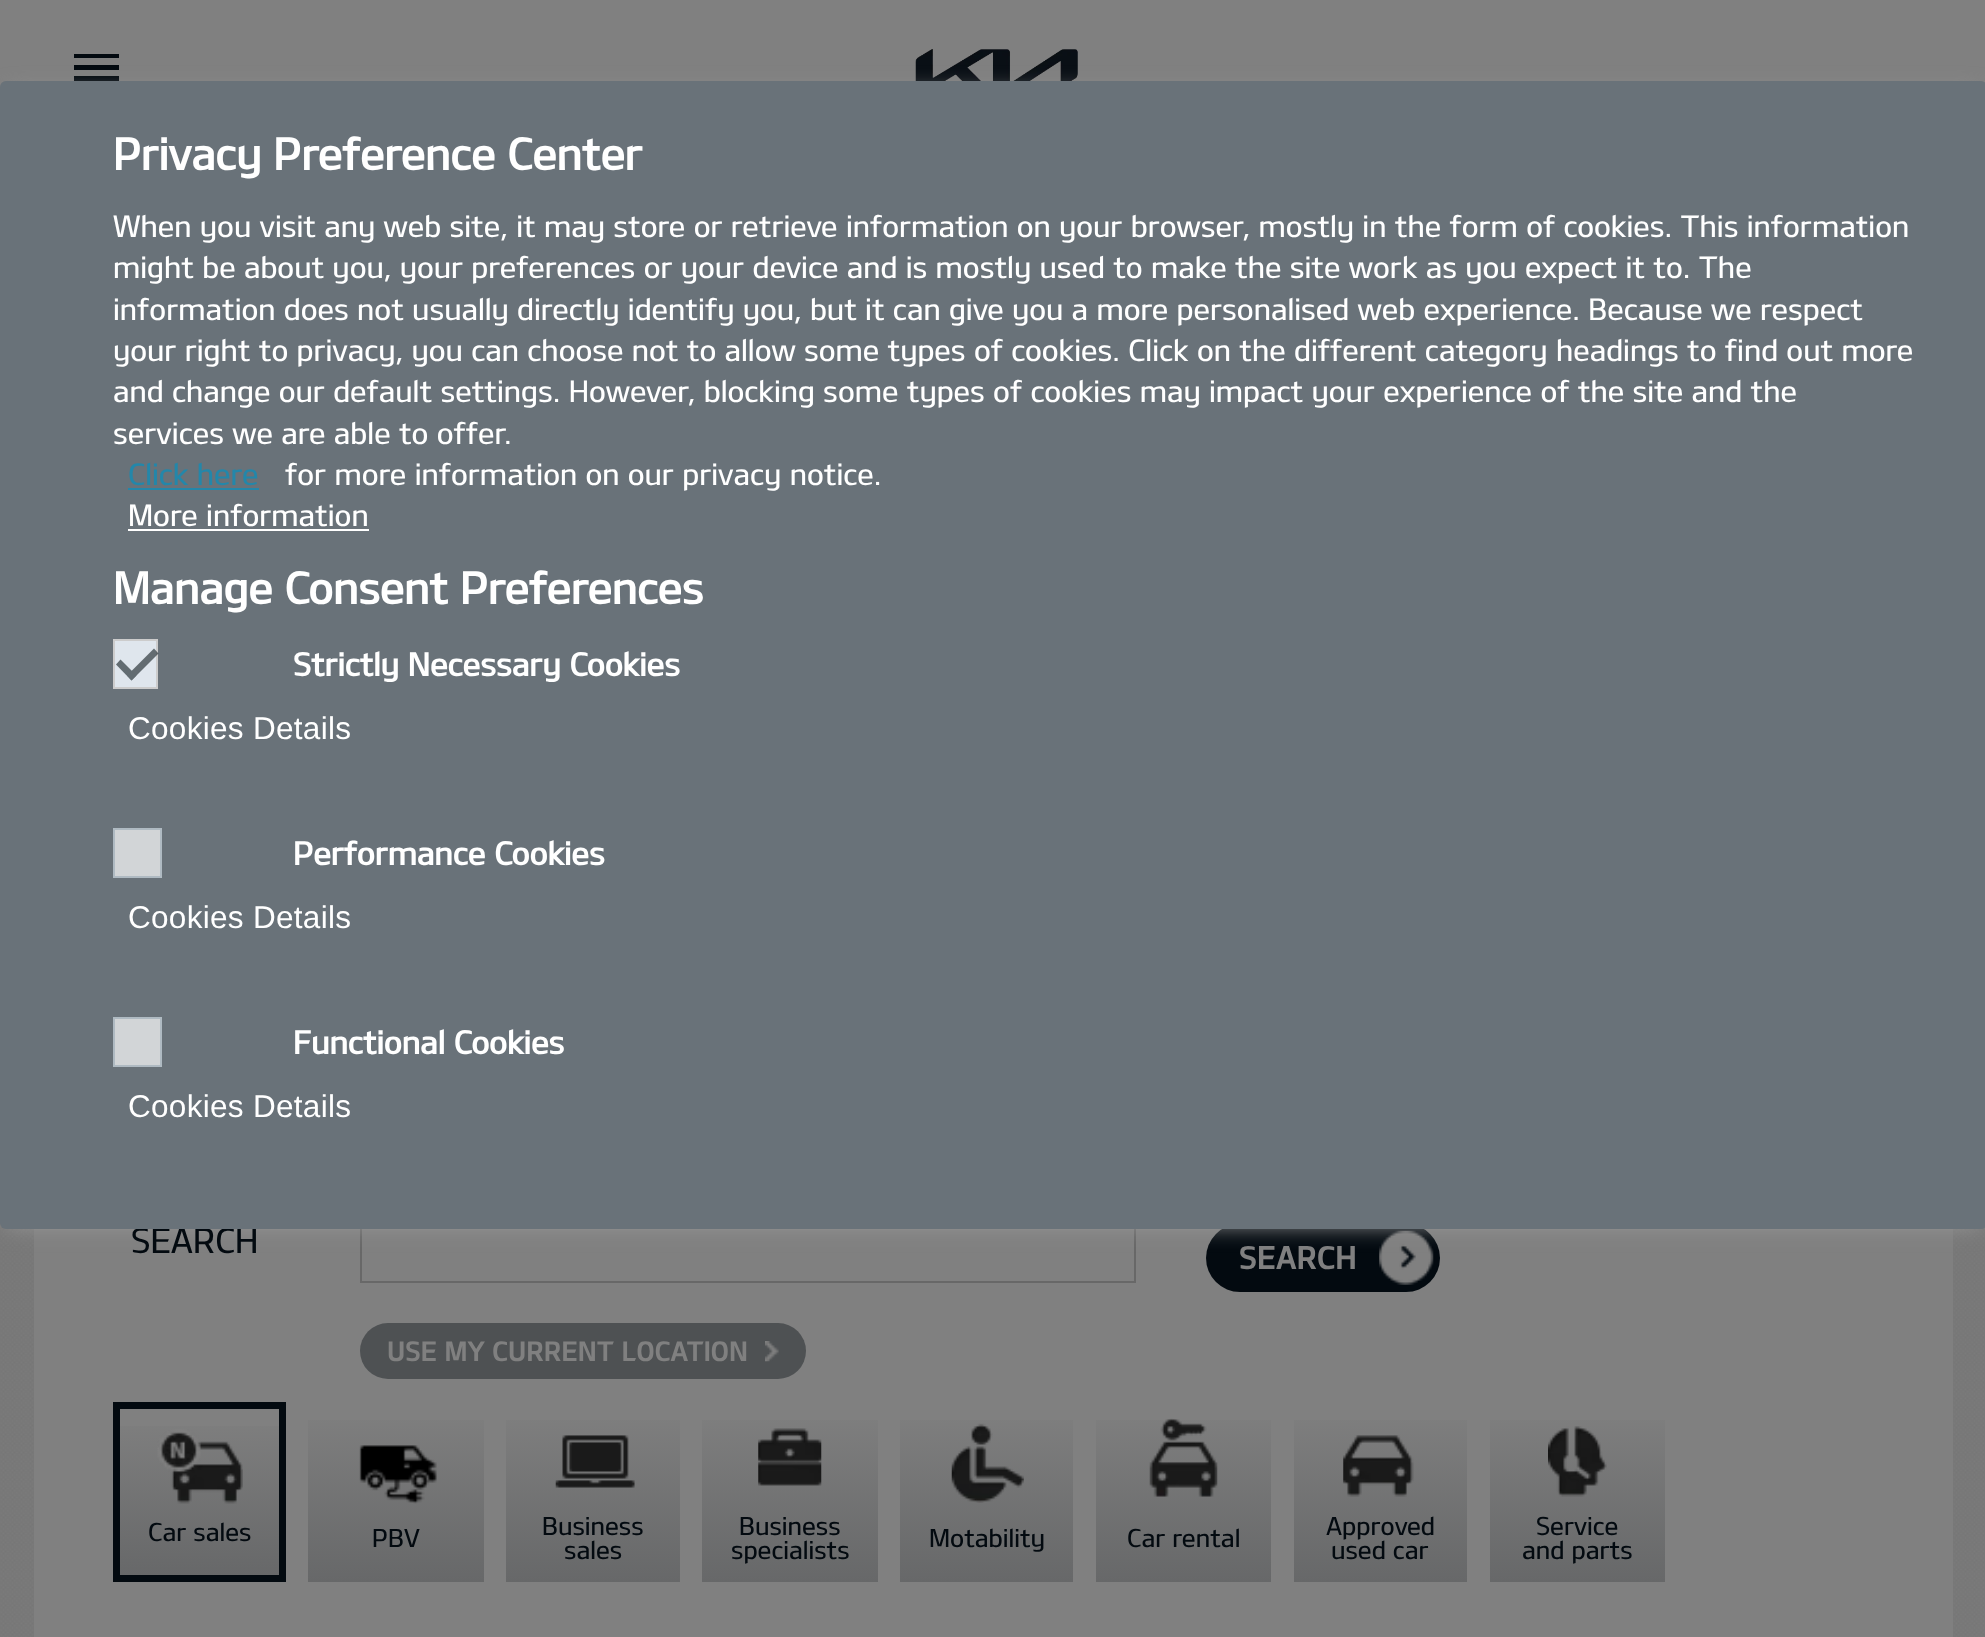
<svg xmlns="http://www.w3.org/2000/svg" width="1985" height="1637" viewBox="0 0 1985 1637">
  <style>
    .t1 { font: 34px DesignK; fill: #030a10; }
    .t2 { font: bold 43.25px DesignK; fill: #fff; }
    .t3 { font: 29.52px DesignK; fill: #fff; }
    .t4 { font: 29.52px DesignK; fill: #2387aa; }
    .t5 { font: bold 31.5px DesignK; fill: #fff; }
    .t6 { font: 31.5px Liberation Sans; letter-spacing: 0.3px; fill: #fff; }
    .t7 { font: 31.5px 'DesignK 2'; fill: #808080; }
    .t8 { font: 27px 'DesignK 2'; fill: #808080; }
    .t9 { font: 24.75px DesignK; fill: #030a10; }
  </style>
  <defs>
    <linearGradient id="g1" gradientUnits="userSpaceOnUse" x1="199" y1="1409" x2="199" y2="1575"><stop offset="0" stop-color="#808080"/><stop offset="1" stop-color="#676869"/></linearGradient>
    <linearGradient id="g2" gradientUnits="userSpaceOnUse" x1="396" y1="1402" x2="396" y2="1582"><stop offset="0" stop-color="#808080"/><stop offset="1" stop-color="#676869"/></linearGradient>
    <linearGradient id="g3" gradientUnits="userSpaceOnUse" x1="593" y1="1402" x2="593" y2="1582"><stop offset="0" stop-color="#808080"/><stop offset="1" stop-color="#676869"/></linearGradient>
    <linearGradient id="g4" gradientUnits="userSpaceOnUse" x1="790" y1="1402" x2="790" y2="1582"><stop offset="0" stop-color="#808080"/><stop offset="1" stop-color="#676869"/></linearGradient>
    <linearGradient id="g5" gradientUnits="userSpaceOnUse" x1="987" y1="1402" x2="987" y2="1582"><stop offset="0" stop-color="#808080"/><stop offset="1" stop-color="#676869"/></linearGradient>
    <linearGradient id="g6" gradientUnits="userSpaceOnUse" x1="1184" y1="1402" x2="1184" y2="1582"><stop offset="0" stop-color="#808080"/><stop offset="1" stop-color="#676869"/></linearGradient>
    <linearGradient id="g7" gradientUnits="userSpaceOnUse" x1="1380" y1="1402" x2="1380" y2="1582"><stop offset="0" stop-color="#808080"/><stop offset="1" stop-color="#676869"/></linearGradient>
    <linearGradient id="g8" gradientUnits="userSpaceOnUse" x1="1577" y1="1402" x2="1577" y2="1582"><stop offset="0" stop-color="#808080"/><stop offset="1" stop-color="#676869"/></linearGradient>
  </defs>
  <rect width="100%" height="100%" fill="#808080"/>
  <path d="M74 54H119V58H74ZM74 76H119V81H74ZM74 65H119V70H74Z" fill="#030a10" fill-rule="evenodd"/>
  <image x="915" y="49" width="163" height="32" href="images/1.png"/>
  <image x="0" y="1223" width="1985" height="414" href="images/2.png"/>
  <rect x="34" y="1229" width="1919" height="408" fill="#808080"/>
  <rect x="361" y="1200" width="774" height="82" fill="none" stroke="#686868" stroke-width="2"/>
  <rect x="1206" y="1224" width="234" height="68" rx="34" fill="#030a10"/>
  <image x="1379" y="1230" width="55" height="55" href="images/3.png"/>
  <rect x="7" y="92" width="1973" height="1134" fill="#999" filter="blur(11px)"/>
  <text x="131" y="1253" class="t1">SEARCH</text>
  <rect x="0" y="81" width="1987" height="1148" rx="6" fill="#697279"/>
  <text x="113" y="170" class="t2">Privacy Preference Center</text>
  <text x="113" y="237" class="t3">When you visit any web site, it may store or retrieve information on your browser, mostly in the form of cookies. This information</text>
  <text x="113" y="278" class="t3">might be about you, your preferences or your device and is mostly used to make the site work as you expect it to. The</text>
  <text x="113" y="320" class="t3">information does not usually directly identify you, but it can give you a more personalised web experience. Because we respect</text>
  <text x="113" y="361" class="t3">your right to privacy, you can choose not to allow some types of cookies. Click on the different category headings to find out more</text>
  <text x="113" y="402" class="t3">and change our default settings. However, blocking some types of cookies may impact your experience of the site and the</text>
  <text x="113" y="444" class="t3">services we are able to offer.</text>
  <text x="128" y="485" class="t4">Click here</text>
  <rect x="128" y="488" width="131" height="2" fill="#2387aa"/>
  <text x="285" y="485" class="t3">for more information on our privacy notice.</text>
  <text x="128" y="526" class="t3">More information</text>
  <rect x="128" y="529" width="241" height="2" fill="#fff"/>
  <text x="113" y="604" class="t2">Manage Consent Preferences</text>
  <rect x="114" y="640" width="43" height="48" fill="#dfe6ed" stroke="#ccc" stroke-width="2"/>
  <path d="M154 648.5L158.5 653.5L131.5 680.5L127 675.5Z" fill="#2d373cb3"/>
  <path d="M120.5 659.5L136.5 675.5L131.5 680.5L116 664.5Z" fill="#626c71"/>
  <text x="293" y="676" class="t5">Strictly Necessary Cookies</text>
  <text x="128" y="739" class="t6">Cookies Details</text>
  <rect x="114" y="829" width="47" height="48" fill="#d2d5d7" stroke="#afbac2" stroke-width="2"/>
  <text x="293" y="865" class="t5">Performance Cookies</text>
  <text x="128" y="928" class="t6">Cookies Details</text>
  <rect x="114" y="1018" width="47" height="48" fill="#d2d5d7" stroke="#afbac2" stroke-width="2"/>
  <text x="293" y="1054" class="t5">Functional Cookies</text>
  <text x="128" y="1117" class="t6">Cookies Details</text>
  <text x="1239" y="1269" class="t7">SEARCH</text>
  <rect x="360" y="1323" width="446" height="56" rx="28" fill="#4e5153"/>
  <text x="387" y="1361" class="t8">USE MY CURRENT LOCATION</text>
  <image x="765" y="1341" width="14" height="21" href="images/4.png"/>
  <rect x="120" y="1426" width="159" height="149" fill="url(#g1)"/>
  <rect x="116.5" y="1405.5" width="166" height="173" fill="none" stroke="#030a10" stroke-width="7"/>
  <image x="157" y="1429" width="86" height="75" href="images/5.png"/>
  <text x="148" y="1541" class="t9">Car sales</text>
  <rect x="308" y="1420" width="176" height="162" fill="url(#g2)"/>
  <image x="359" y="1445" width="78" height="59" href="images/6.png"/>
  <text x="372" y="1547" class="t9">PBV</text>
  <rect x="506" y="1420" width="174" height="162" fill="url(#g3)"/>
  <image x="555" y="1435" width="80" height="53" href="images/7.png"/>
  <text x="542" y="1535" class="t9">Business</text>
  <text x="564" y="1559" class="t9">sales</text>
  <rect x="702" y="1420" width="176" height="162" fill="url(#g4)"/>
  <image x="758" y="1428" width="64" height="58" href="images/8.png"/>
  <text x="739" y="1535" class="t9">Business</text>
  <text x="731" y="1559" class="t9">specialists</text>
  <rect x="900" y="1420" width="173" height="162" fill="url(#g5)"/>
  <image x="951" y="1423" width="73" height="80" href="images/9.png"/>
  <text x="929" y="1547" class="t9">Motability</text>
  <rect x="1096" y="1420" width="175" height="162" fill="url(#g6)"/>
  <image x="1149" y="1418" width="69" height="79" href="images/10.png"/>
  <text x="1127" y="1547" class="t9">Car rental</text>
  <rect x="1294" y="1420" width="173" height="162" fill="url(#g7)"/>
  <image x="1343" y="1435" width="71" height="62" href="images/11.png"/>
  <text x="1326" y="1535" class="t9">Approved</text>
  <text x="1331" y="1559" class="t9">used car</text>
  <rect x="1490" y="1420" width="175" height="162" fill="url(#g8)"/>
  <image x="1548" y="1426" width="59" height="71" href="images/12.png"/>
  <text x="1536" y="1535" class="t9">Service</text>
  <text x="1522" y="1559" class="t9">and parts</text>
</svg>
